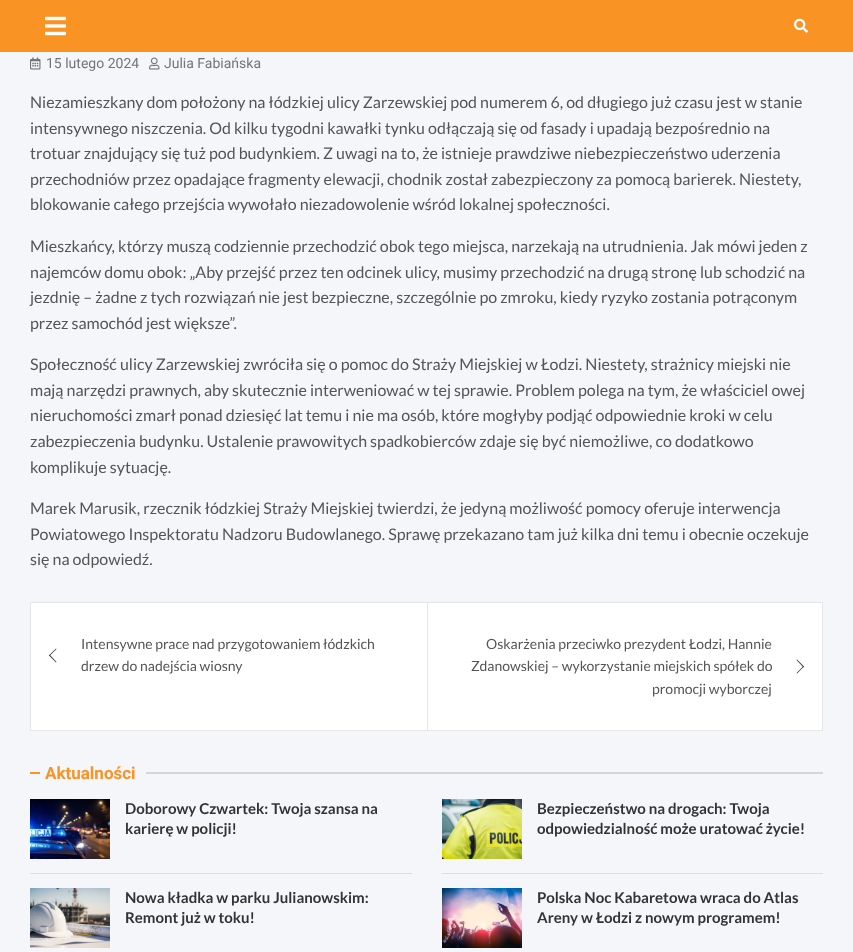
<svg xmlns="http://www.w3.org/2000/svg" width="853" height="952" viewBox="0 0 853 952">
  <style>
    .t1 { font: 14px Roboto; fill: #757576; }
    .t2 { font: 16px Lato; fill: #555; }
    .t3 { font: 14px Lato; fill: #555; }
    .t4 { font: bold 17px Roboto; fill: #f89324; }
    .t5 { font: bold 15px Lato; fill: #333; }
  </style>
  <rect width="100%" height="100%" fill="#f4f6f9"/>
  <rect x="0" y="0" width="853" height="52" fill="#f89324"/>
  <image x="45" y="16" width="21" height="20" href="images/1.png"/>
  <image x="794" y="18" width="14" height="15" href="images/2.png"/>
  <image x="30" y="57" width="11" height="13" href="images/3.png"/>
  <text x="46" y="68" class="t1">15 lutego 2024</text>
  <image x="149" y="57" width="11" height="13" href="images/4.png"/>
  <text x="164" y="68" class="t1">Julia Fabiańska</text>
  <text x="30" y="108" class="t2">Niezamieszkany dom położony na łódzkiej ulicy Zarzewskiej pod numerem 6, od długiego już czasu jest w stanie</text>
  <text x="30" y="134" class="t2">intensywnego niszczenia. Od kilku tygodni kawałki tynku odłączają się od fasady i upadają bezpośrednio na</text>
  <text x="30" y="159" class="t2">trotuar znajdujący się tuż pod budynkiem. Z uwagi na to, że istnieje prawdziwe niebezpieczeństwo uderzenia</text>
  <text x="30" y="185" class="t2">przechodniów przez opadające fragmenty elewacji, chodnik został zabezpieczony za pomocą barierek. Niestety,</text>
  <text x="30" y="210" class="t2">blokowanie całego przejścia wywołało niezadowolenie wśród lokalnej społeczności.</text>
  <text x="30" y="252" class="t2">Mieszkańcy, którzy muszą codziennie przechodzić obok tego miejsca, narzekają na utrudnienia. Jak mówi jeden z</text>
  <text x="30" y="278" class="t2">najemców domu obok: „Aby przejść przez ten odcinek ulicy, musimy przechodzić na drugą stronę lub schodzić na</text>
  <text x="30" y="303" class="t2">jezdnię – żadne z tych rozwiązań nie jest bezpieczne, szczególnie po zmroku, kiedy ryzyko zostania potrąconym</text>
  <text x="30" y="329" class="t2">przez samochód jest większe”.</text>
  <text x="30" y="370" class="t2">Społeczność ulicy Zarzewskiej zwróciła się o pomoc do Straży Miejskiej w Łodzi. Niestety, strażnicy miejski nie</text>
  <text x="30" y="396" class="t2">mają narzędzi prawnych, aby skutecznie interweniować w tej sprawie. Problem polega na tym, że właściciel owej</text>
  <text x="30" y="421" class="t2">nieruchomości zmarł ponad dziesięć lat temu i nie ma osób, które mogłyby podjąć odpowiednie kroki w celu</text>
  <text x="30" y="447" class="t2">zabezpieczenia budynku. Ustalenie prawowitych spadkobierców zdaje się być niemożliwe, co dodatkowo</text>
  <text x="30" y="473" class="t2">komplikuje sytuację.</text>
  <text x="30" y="514" class="t2">Marek Marusik, rzecznik łódzkiej Straży Miejskiej twierdzi, że jedyną możliwość pomocy oferuje interwencja</text>
  <text x="30" y="540" class="t2">Powiatowego Inspektoratu Nadzoru Budowlanego. Sprawę przekazano tam już kilka dni temu i obecnie oczekuje</text>
  <text x="30" y="565" class="t2">się na odpowiedź.</text>
  <rect x="30.5" y="602.5" width="792" height="128" fill="#fff" stroke="#e6e6e6"/>
  <text x="81" y="649" class="t3">Intensywne prace nad przygotowaniem łódzkich</text>
  <path d="M49.5 654.5L56.5 662L56 662.5L49 655.5Z" fill="#333"/>
  <path d="M56 648.5L56.5 649L49.5 656L49 655.5Z" fill="#333"/>
  <text x="81" y="671" class="t3">drzew do nadejścia wiosny</text>
  <rect x="427" y="603" width="1" height="127" fill="#e6e6e6"/>
  <text x="486" y="649" class="t3">Oskarżenia przeciwko prezydent Łodzi, Hannie</text>
  <text x="471" y="671" class="t3">Zdanowskiej – wykorzystanie miejskich spółek do</text>
  <path d="M797 659.5L804 666.5L803.5 667.5L796.5 660Z" fill="#333"/>
  <path d="M803.5 666L804 666.5L797 673.5L796.5 673Z" fill="#333"/>
  <text x="652" y="694" class="t3">promocji wyborczej</text>
  <rect x="30" y="772" width="10" height="2" fill="#f89324"/>
  <text x="45" y="779" class="t4">Aktualności</text>
  <rect x="146" y="772" width="677" height="2" fill="#d4d6d8"/>
  <image x="30" y="799" width="80" height="60" href="images/5.png"/>
  <text x="125" y="814" class="t5">Doborowy Czwartek: Twoja szansa na</text>
  <text x="125" y="834" class="t5">karierę w policji!</text>
  <image x="442" y="799" width="80" height="60" href="images/6.png"/>
  <text x="537" y="814" class="t5">Bezpieczeństwo na drogach: Twoja</text>
  <text x="537" y="834" class="t5">odpowiedzialność może uratować życie!</text>
  <rect x="30" y="873" width="382" height="1" fill="#dcdde0"/>
  <image x="30" y="888" width="80" height="60" href="images/7.png"/>
  <text x="125" y="903" class="t5">Nowa kładka w parku Julianowskim:</text>
  <text x="125" y="923" class="t5">Remont już w toku!</text>
  <rect x="442" y="873" width="381" height="1" fill="#dcdde0"/>
  <image x="442" y="888" width="80" height="60" href="images/8.png"/>
  <text x="537" y="903" class="t5">Polska Noc Kabaretowa wraca do Atlas</text>
  <text x="537" y="923" class="t5">Areny w Łodzi z nowym programem!</text>
</svg>
